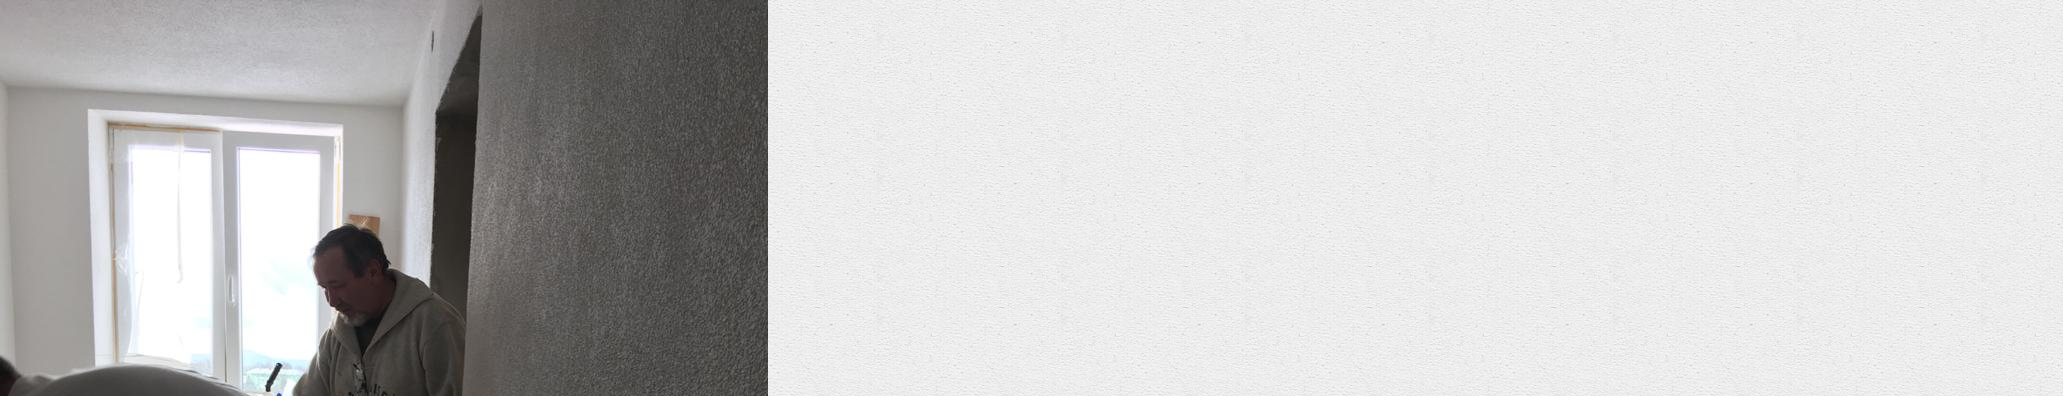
<svg xmlns="http://www.w3.org/2000/svg" width="2063" height="396" viewBox="0 0 2063 396">
  <rect width="100%" height="100%" fill="#fff"/>
  <image x="768" y="0" width="1295" height="396" href="images/1.png"/>
  <image x="0" y="0" width="768" height="396" href="images/2.png"/>
</svg>
